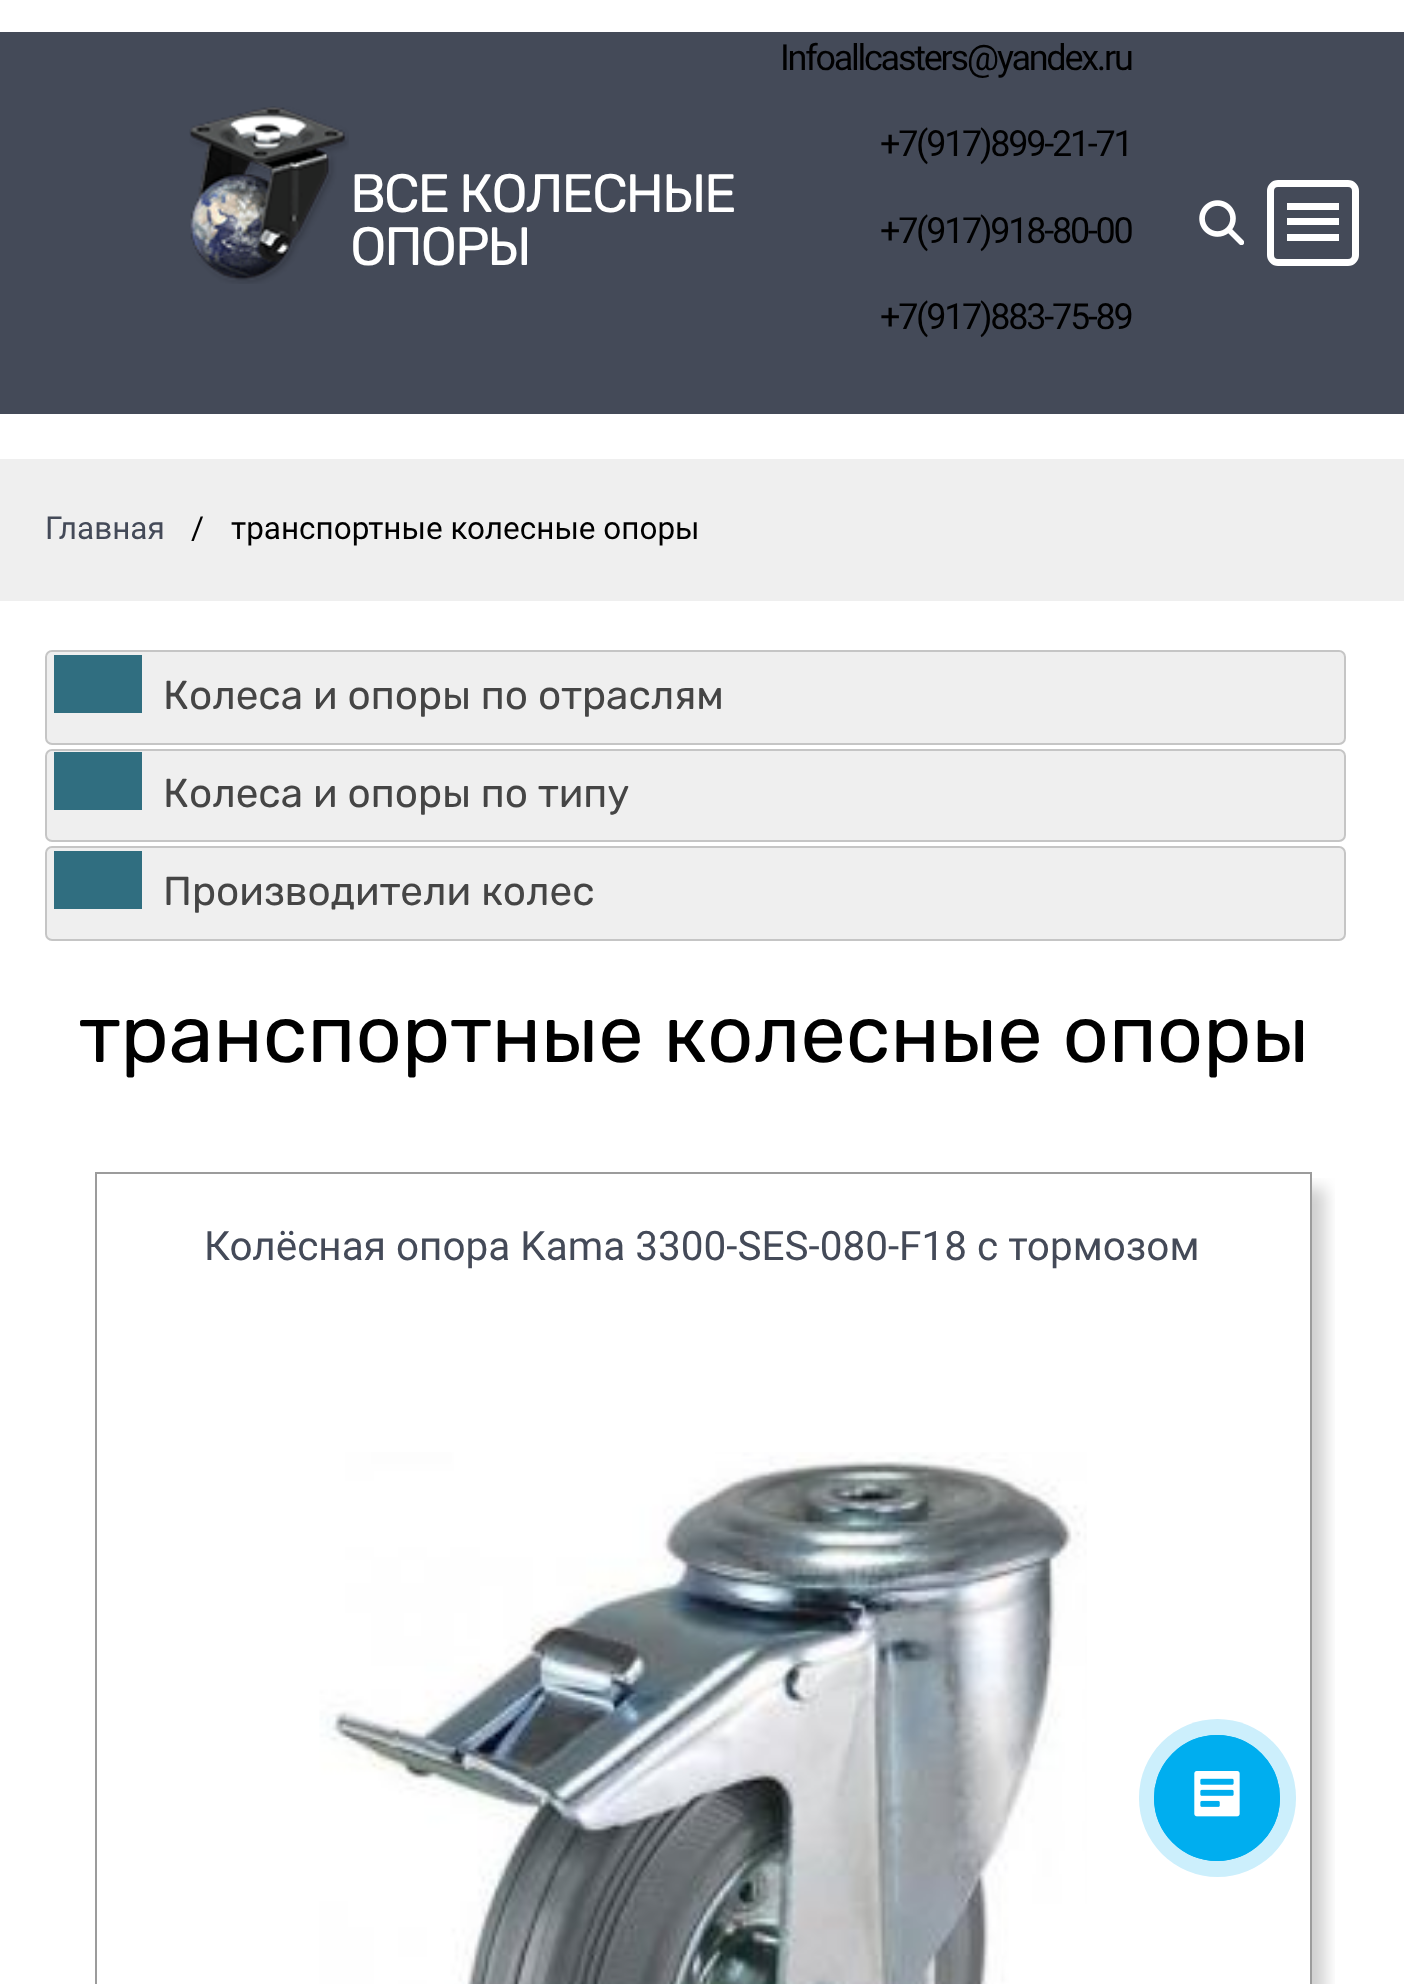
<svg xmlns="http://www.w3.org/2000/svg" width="1404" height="1984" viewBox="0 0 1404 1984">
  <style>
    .t1 { font: 300 54px Rubik; letter-spacing: -2.25px; fill: #fff; }
    .t2 { font: 36px Roboto; letter-spacing: -2.25px; fill: #000; }
    .t3 { font: 31.5px Roboto; fill: #444a58; }
    .t4 { font: 31.5px Roboto; fill: #000; }
    .t5 { font: 300 40.5px Rubik; fill: #454545; }
    .t6 { font: 300 81px Rubik; fill: #000; }
    .t7 { font: 40.5px Roboto; fill: #444a58; }
  </style>
  <defs>
    <clipPath id="clip1"><rect x="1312" y="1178" width="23" height="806"/></clipPath>
  </defs>
  <rect width="100%" height="100%" fill="#fff"/>
  <rect x="0" y="32" width="1404" height="382" fill="#444a58"/>
  <image x="189" y="106" width="160" height="178" href="images/1.png"/>
  <text x="350" y="212" class="t1">ВСЕ КОЛЕСНЫЕ</text>
  <text x="350" y="265" class="t1">ОПОРЫ</text>
  <text x="780" y="70" class="t2">Infoallcasters@yandex.ru</text>
  <text x="880" y="156" class="t2">+7(917)899-21-71</text>
  <text x="880" y="243" class="t2">+7(917)918-80-00</text>
  <text x="880" y="329" class="t2">+7(917)883-75-89</text>
  <image x="1199" y="200" width="45" height="45" href="images/2.png"/>
  <rect x="1270.5" y="183.5" width="85" height="79" rx="7.5" fill="none" stroke="#fff" stroke-width="7"/>
  <rect x="1287" y="203" width="52" height="7" fill="#fff"/>
  <rect x="1287" y="218" width="52" height="7" fill="#fff"/>
  <rect x="1287" y="234" width="52" height="7" fill="#fff"/>
  <rect x="0" y="459" width="1404" height="142" fill="#efefef"/>
  <text x="45" y="539" class="t3">Главная</text>
  <text x="191" y="539" class="t4">/</text>
  <text x="231" y="539" class="t4">транспортные колесные опоры</text>
  <rect x="46" y="651" width="1299" height="93" rx="6" fill="#efefef" stroke="#c5c5c5" stroke-width="2"/>
  <rect x="54" y="655" width="88" height="58" fill="#306e80"/>
  <text x="163" y="709" class="t5">Колеса и опоры по отраслям</text>
  <rect x="46" y="750" width="1299" height="91" rx="6" fill="#efefef" stroke="#c5c5c5" stroke-width="2"/>
  <rect x="54" y="752" width="88" height="58" fill="#306e80"/>
  <text x="163" y="807" class="t5">Колеса и опоры по типу</text>
  <rect x="46" y="847" width="1299" height="93" rx="6" fill="#efefef" stroke="#c5c5c5" stroke-width="2"/>
  <rect x="54" y="851" width="88" height="58" fill="#306e80"/>
  <text x="163" y="905" class="t5">Производители колес</text>
  <text x="79" y="1062" class="t6">транспортные колесные опоры</text>
  <g clip-path="url(#clip1)">
    <rect x="104" y="1188" width="1221" height="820" fill="#00000030" filter="blur(8px)"/>
  </g>
  <rect x="96" y="1173" width="1215" height="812" fill="none" stroke="#9c9c9c" stroke-width="2"/>
  <text x="204" y="1260" class="t7">Колёсная опора Kama 3300-SES-080-F18 с тормозом</text>
  <image x="319" y="1452" width="768" height="532" href="images/3.png"/>
  <rect x="1139" y="1719" width="157" height="158" rx="78.5" fill="#cceffc"/>
  <circle cx="1217" cy="1798" r="62" fill="none" stroke="#00aeef" stroke-width="2"/>
  <circle cx="1217" cy="1798" r="63" fill="#00aeef"/>
  <image x="1194" y="1771" width="46" height="46" href="images/4.png"/>
</svg>
